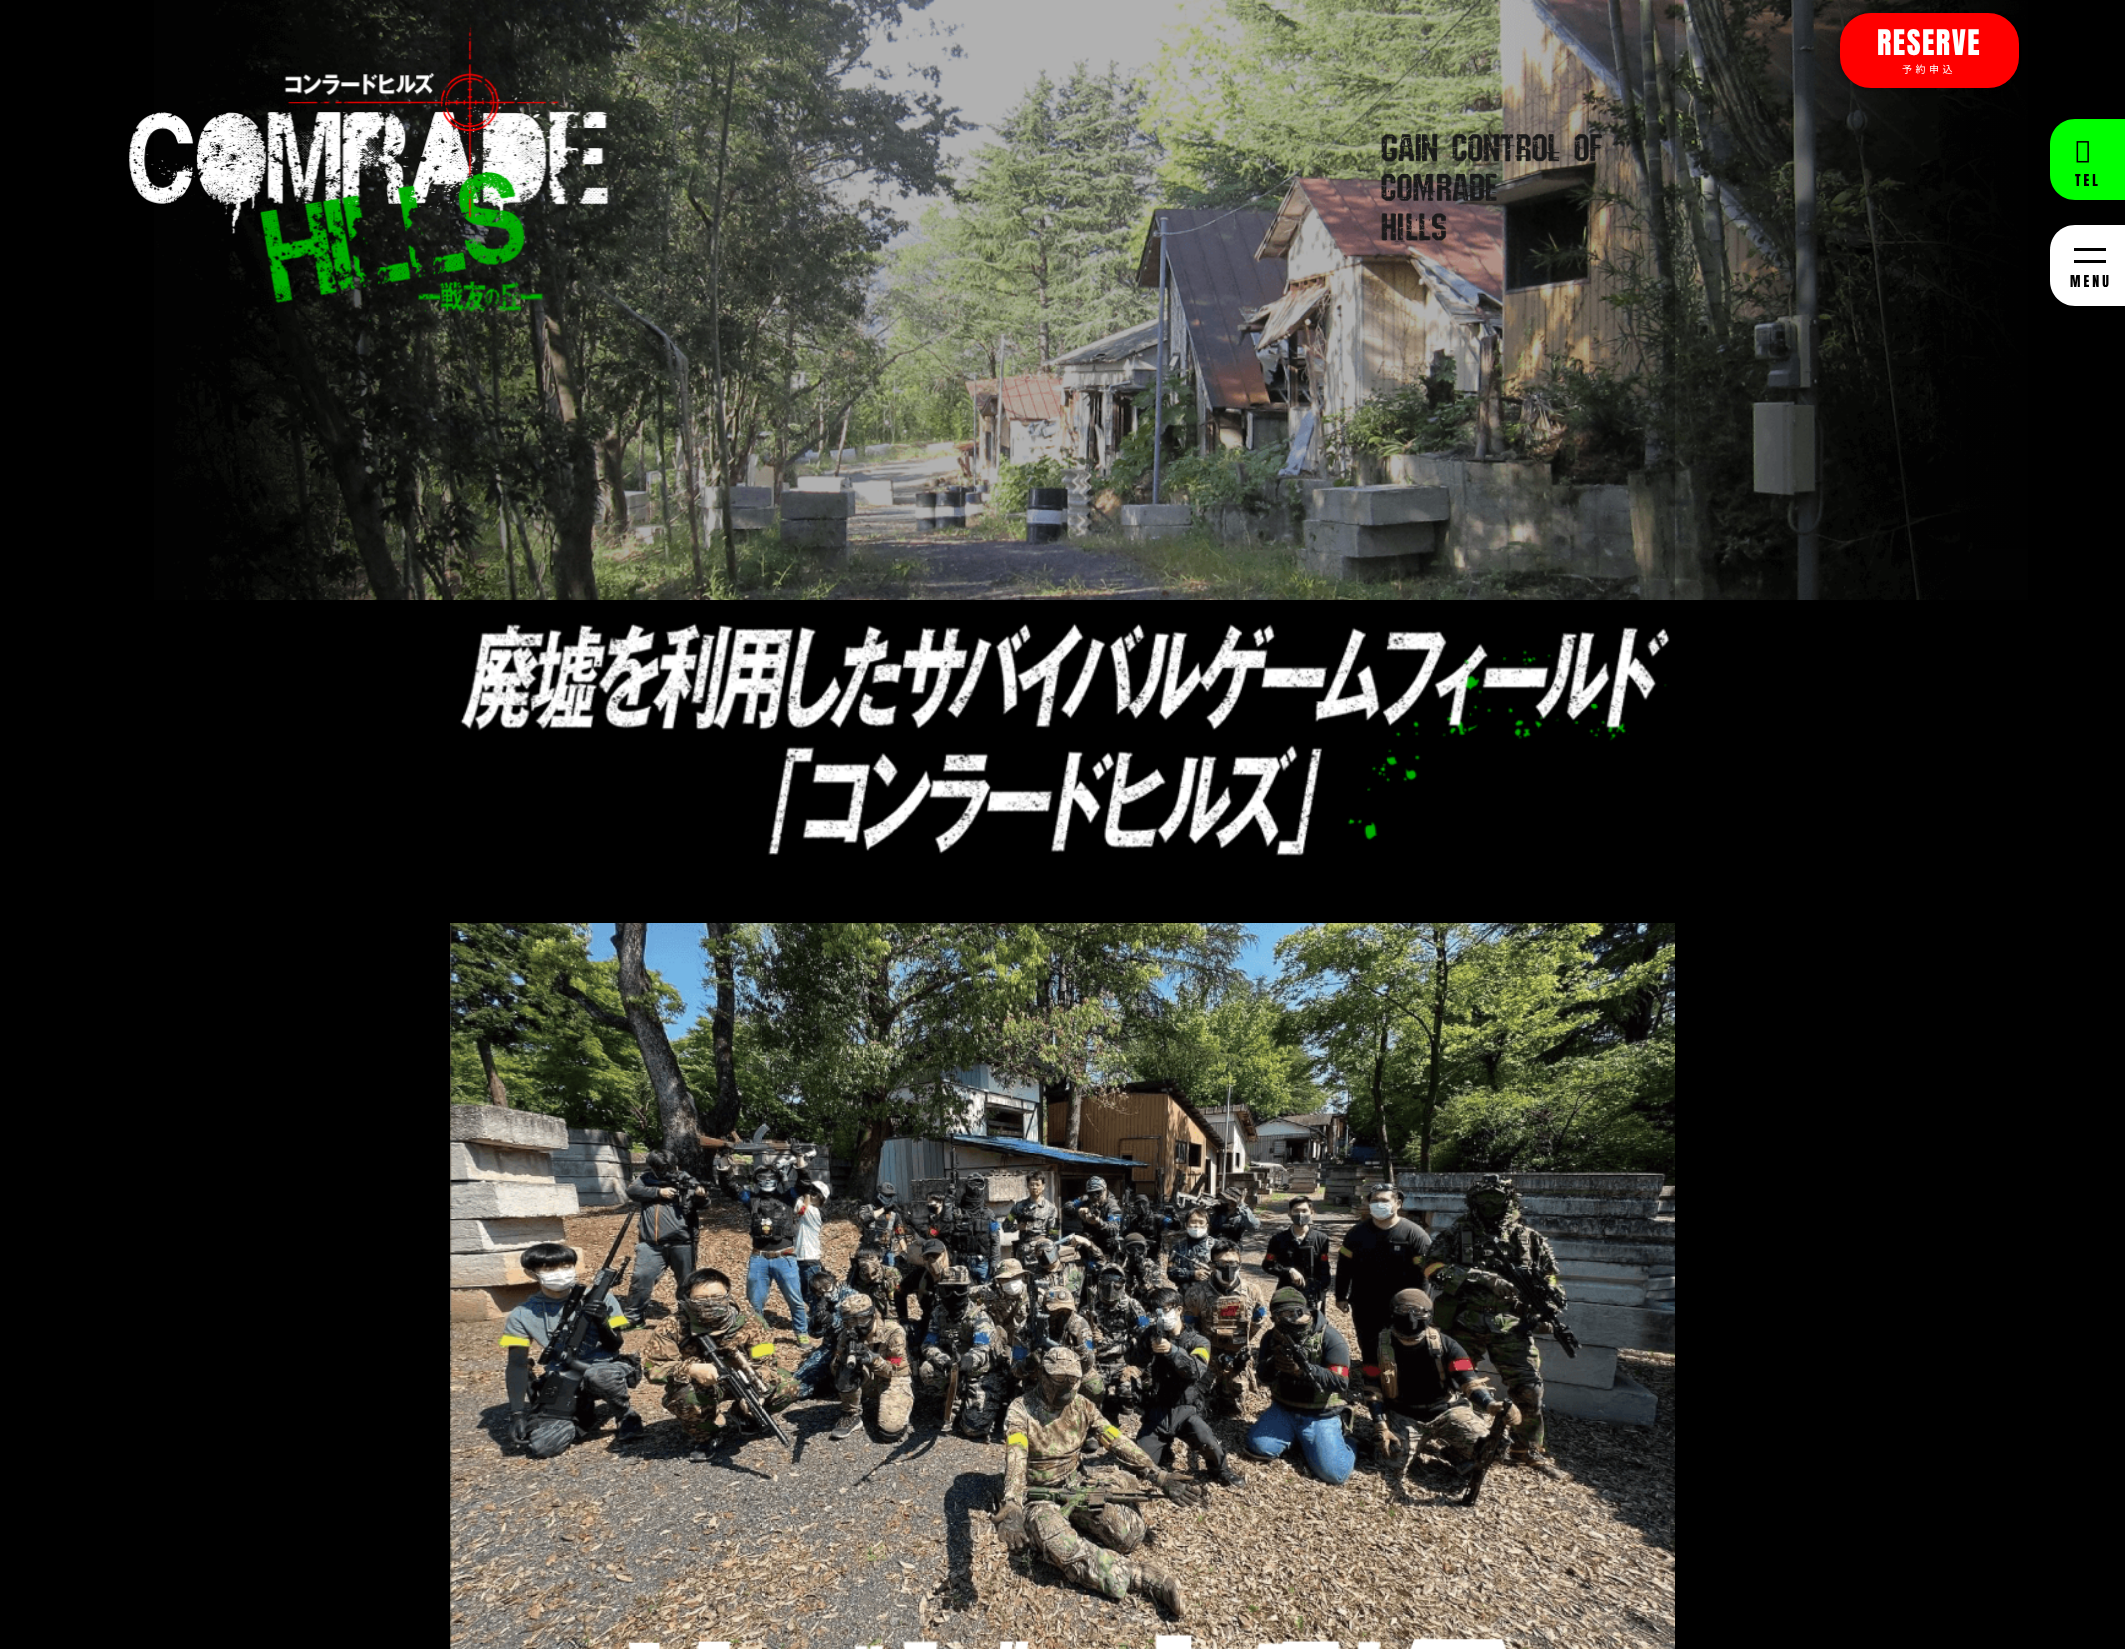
<svg xmlns="http://www.w3.org/2000/svg" width="2125" height="1649" viewBox="0 0 2125 1649">
  <style>
    .t1 { font: 30px Anton; letter-spacing: 1.5px; fill: #fff; }
    .t2 { font: 10px Noto Sans JP; letter-spacing: 3.5px; fill: #fff; }
    .t3 { font: 14px Anton; letter-spacing: 3px; fill: #000; }
  </style>
  <defs>
    <linearGradient id="g1" gradientUnits="userSpaceOnUse" x1="1913" y1="300" x2="2125" y2="300"><stop offset="0" stop-color="#000" stop-opacity="0"/><stop offset="1" stop-color="#000"/></linearGradient>
  </defs>
  <rect width="100%" height="100%" fill="#000"/>
  <image x="154" y="0" width="1874" height="600" href="images/1.png"/>
  <rect x="1939" y="0" width="89" height="549" fill="url(#g1)"/>
  <rect x="450" y="0" width="1225" height="600" fill="#0000004d"/>
  <image x="129" y="24" width="493" height="298" href="images/2.png"/>
  <rect x="1838" y="15" width="178" height="75" rx="31" fill="#0000004d" filter="blur(2.5px)"/>
  <rect x="1841.5" y="14.5" width="176" height="72" rx="29.5" fill="#f00" stroke="#f00" stroke-width="3"/>
  <text x="1877" y="55" class="t1">RESERVE</text>
  <text x="1902" y="73" class="t2">予約申込</text>
  <image x="1381" y="133" width="221" height="109" href="images/3.png"/>
  <path d="M2075 119H2125V200H2075C2061 200 2050 189 2050 175V144C2050 130 2061 119 2075 119Z" fill="#0f0"/>
  <image x="2076" y="141" width="13" height="22" href="images/4.png"/>
  <text x="2075" y="186" class="t3">TEL</text>
  <path d="M2075 225H2125V306H2075C2061 306 2050 295 2050 281V250C2050 236 2061 225 2075 225Z" fill="#fff"/>
  <rect x="2074" y="248" width="32" height="3" fill="#000"/>
  <rect x="2074" y="260" width="32" height="3" fill="#000"/>
  <text x="2070" y="287" class="t3">MENU</text>
  <image x="460" y="623" width="1210" height="233" href="images/5.png"/>
  <image x="450" y="923" width="1225" height="726" href="images/6.png"/>
</svg>
